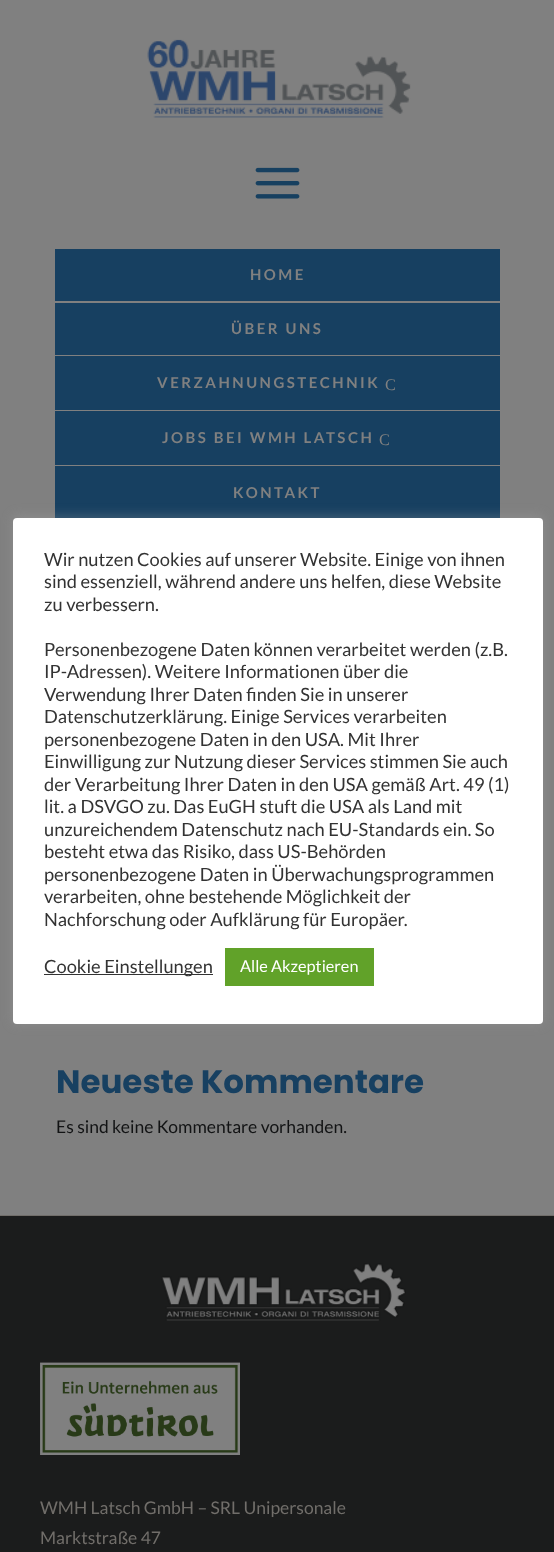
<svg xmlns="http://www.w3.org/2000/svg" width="554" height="1552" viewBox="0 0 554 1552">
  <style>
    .t1 { font: bold 15px Lato; letter-spacing: 2.5px; fill: #808080; }
    .t2 { font: 16.25px Liberation Serif; letter-spacing: 2.5px; fill: #808080; }
    .t3 { font: bold 32.5px Poppins; fill: #174061; }
    .t4 { font: 17.5px Lato; fill: #121314; }
    .t5 { font: 17.5px Lato; fill: #716e6a; }
    .t6 { font: 18.3px Lato; fill: #333; }
    .t7 { font: 16.25px Lato; fill: #fff; }
  </style>
  <rect width="100%" height="100%" fill="#808080"/>
  <image x="147" y="39" width="264" height="79" href="images/1.png"/>
  <image x="255" y="167" width="45" height="32" href="images/2.png"/>
  <rect x="55" y="249" width="445" height="52" fill="#174061"/>
  <text x="250" y="280" class="t1">HOME</text>
  <rect x="55" y="303" width="445" height="52" fill="#174061"/>
  <text x="231" y="334" class="t1">ÜBER UNS</text>
  <rect x="55" y="356" width="445" height="54" fill="#174061"/>
  <text x="157" y="388" class="t1">VERZAHNUNGSTECHNIK</text>
  <text x="385" y="390" class="t2">C</text>
  <rect x="55" y="411" width="445" height="54" fill="#174061"/>
  <text x="162" y="443" class="t1">JOBS BEI WMH LATSCH</text>
  <text x="379" y="445" class="t2">C</text>
  <rect x="55" y="466" width="445" height="52" fill="#174061"/>
  <text x="233" y="498" class="t1">KONTAKT</text>
  <text x="56" y="1093" class="t3">Neueste Kommentare</text>
  <text x="56" y="1133" class="t4">Es sind keine Kommentare vorhanden.</text>
  <rect x="0" y="1216" width="554" height="336" fill="#1b1c1c"/>
  <rect x="0" y="1215" width="554" height="1" fill="#716e6a"/>
  <image x="161" y="1263" width="245" height="58" href="images/3.png"/>
  <image x="40" y="1362" width="200" height="93" href="images/4.png"/>
  <text x="40" y="1514" class="t5">WMH Latsch GmbH – SRL Unipersonale</text>
  <text x="40" y="1544" class="t5">Marktstraße 47</text>
  <rect x="13" y="516" width="530" height="507" rx="4" fill="#acabab4d" filter="blur(6px)"/>
  <rect x="13" y="518" width="530" height="506" rx="4" fill="#fff"/>
  <text x="44" y="566" class="t6">Wir nutzen Cookies auf unserer Website. Einige von ihnen</text>
  <text x="44" y="588" class="t6">sind essenziell, während andere uns helfen, diese Website</text>
  <text x="44" y="611" class="t6">zu verbessern.</text>
  <text x="44" y="656" class="t6">Personenbezogene Daten können verarbeitet werden (z.B.</text>
  <text x="44" y="678" class="t6">IP-Adressen). Weitere Informationen über die</text>
  <text x="44" y="701" class="t6">Verwendung Ihrer Daten finden Sie in unserer</text>
  <text x="44" y="723" class="t6">Datenschutzerklärung. Einige Services verarbeiten</text>
  <text x="44" y="746" class="t6">personenbezogene Daten in den USA. Mit Ihrer</text>
  <text x="44" y="768" class="t6">Einwilligung zur Nutzung dieser Services stimmen Sie auch</text>
  <text x="44" y="791" class="t6">der Verarbeitung Ihrer Daten in den USA gemäß Art. 49 (1)</text>
  <text x="44" y="813" class="t6">lit. a DSVGO zu. Das EuGH stuft die USA als Land mit</text>
  <text x="44" y="836" class="t6">unzureichendem Datenschutz nach EU-Standards ein. So</text>
  <text x="44" y="858" class="t6">besteht etwa das Risiko, dass US-Behörden</text>
  <text x="44" y="881" class="t6">personenbezogene Daten in Überwachungsprogrammen</text>
  <text x="44" y="903" class="t6">verarbeiten, ohne bestehende Möglichkeit der</text>
  <text x="44" y="926" class="t6">Nachforschung oder Aufklärung für Europäer.</text>
  <rect x="44" y="974" width="169" height="1" fill="#333"/>
  <text x="44" y="973" class="t6">Cookie Einstellungen</text>
  <rect x="225" y="948" width="149" height="38" fill="#61a229"/>
  <text x="240" y="972" class="t7">Alle Akzeptieren</text>
</svg>
